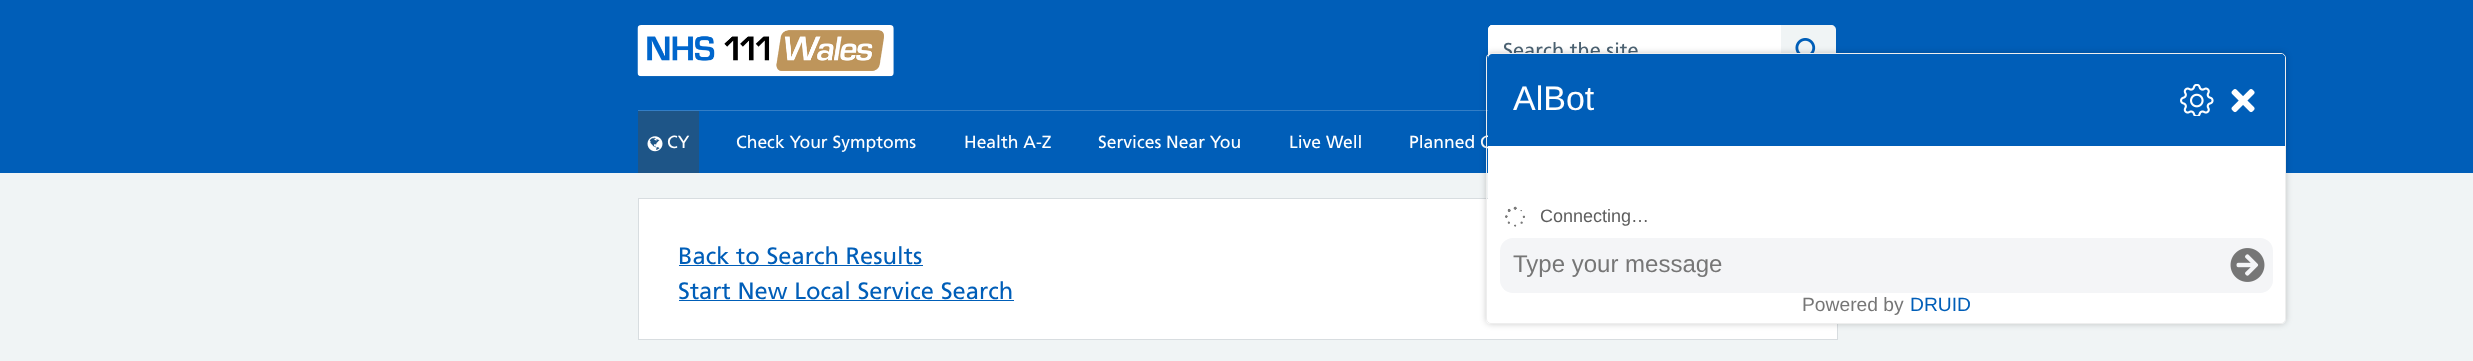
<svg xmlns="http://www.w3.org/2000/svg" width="2473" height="361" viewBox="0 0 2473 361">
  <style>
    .t1 { font: 20px Frutiger; fill: #4c6272; }
    .t2 { font: 17.5px Frutiger; fill: #fff; }
    .t3 { font: 23.75px Frutiger; fill: #005eb8; }
    .t4 { font: 34px Liberation Sans; fill: #fff; }
    .t5 { font: 18px Liberation Sans; fill: #5e5e5e; }
    .t6 { font: 24px Liberation Sans; fill: #767676; }
    .t7 { font: 19.25px Liberation Sans; fill: #767676; }
    .t8 { font: 19.25px Liberation Sans; fill: #005eb8; }
  </style>
  <defs>
    <clipPath id="clip1"><path d="M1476 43H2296V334H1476ZM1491 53H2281C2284 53 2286 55 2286 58V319C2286 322 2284 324 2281 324H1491C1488 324 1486 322 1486 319V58C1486 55 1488 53 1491 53Z" clip-rule="evenodd"/></clipPath>
  </defs>
  <rect width="100%" height="100%" fill="#f0f4f5"/>
  <rect x="0" y="0" width="2473" height="173" fill="#005eb8"/>
  <image x="637" y="25" width="257" height="52" href="images/1.png"/>
  <path d="M1493 25H1781V75H1493C1490 75 1488 73 1488 70V30C1488 27 1490 25 1493 25Z" fill="#fff"/>
  <path d="M1492 25H1781V75H1492C1490 75 1488 73 1488 70V30C1488 27 1490 25 1492 25ZM1492 26H1781V74H1492C1490 74 1489 72 1489 70V30C1489 28 1490 26 1492 26Z" fill="#fff" fill-rule="evenodd"/>
  <text x="1503" y="57" class="t1">Search the site</text>
  <path d="M1781 25H1831C1834 25 1836 27 1836 30V70C1836 73 1834 75 1831 75H1781Z" fill="#f0f4f5"/>
  <image x="1795" y="38" width="21" height="15" href="images/2.png"/>
  <rect x="638" y="110" width="850" height="1" fill="#337ec6"/>
  <rect x="638" y="111" width="61" height="62" fill="#1e5587"/>
  <image x="647" y="136" width="16" height="16" href="images/3.png"/>
  <text x="667" y="148" class="t2">CY</text>
  <text x="736" y="148" class="t2">Check Your Symptoms</text>
  <text x="964" y="148" class="t2">Health A-Z</text>
  <text x="1098" y="148" class="t2">Services Near You</text>
  <text x="1289" y="148" class="t2">Live Well</text>
  <text x="1409" y="148" class="t2">Planned C</text>
  <rect x="638.5" y="198.5" width="1199" height="141" fill="#fff" stroke="#d8dde0"/>
  <text x="678" y="264" class="t3">Back to Search Results</text>
  <rect x="679" y="265" width="244" height="1" fill="#005eb8"/>
  <text x="678" y="299" class="t3">Start New Local Service Search</text>
  <rect x="679" y="300" width="335" height="1" fill="#005eb8"/>
  <g clip-path="url(#clip1)">
    <rect x="1486" y="53" width="800" height="271" rx="5" fill="#00000033" filter="blur(3px)"/>
  </g>
  <rect x="1486.5" y="53.5" width="799" height="270" rx="4.5" fill="none" stroke="#eee"/>
  <path d="M1492 54H2281C2283 54 2285 56 2285 58V146H1488V58C1488 56 1490 54 1492 54Z" fill="#005eb8"/>
  <text x="1513" y="110" class="t4">AlBot</text>
  <image x="2180" y="84" width="34" height="32" href="images/4.png"/>
  <image x="2231" y="89" width="24" height="24" href="images/5.png"/>
  <rect x="1488" y="146" width="797" height="92" fill="#fff"/>
  <image x="1505" y="206" width="20" height="21" href="images/6.png"/>
  <text x="1540" y="222" class="t5">Connecting…</text>
  <path d="M1488 238H2285V319C2285 321 2283 323 2281 323H1492C1490 323 1488 321 1488 319Z" fill="#fff"/>
  <rect x="1500" y="238" width="773" height="55" rx="13" fill="#f4f5f7"/>
  <text x="1513" y="272" class="t6">Type your message</text>
  <image x="2230" y="248" width="35" height="34" href="images/7.png"/>
  <text x="1802" y="311" class="t7">Powered by</text>
  <text x="1910" y="311" class="t8">DRUID</text>
</svg>
